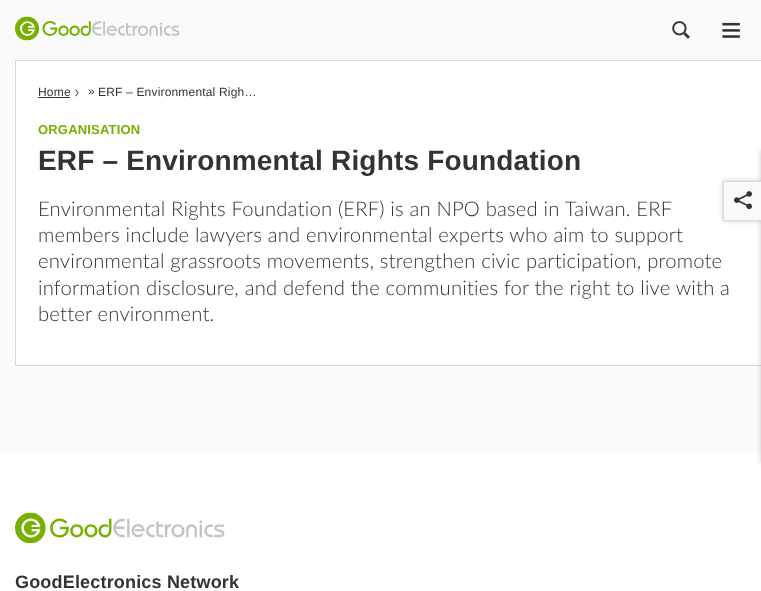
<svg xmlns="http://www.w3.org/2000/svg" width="761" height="591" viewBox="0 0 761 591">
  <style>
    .t1 { font: 12px Liberation Sans; letter-spacing: 0.18px; fill: #333; }
    .t2 { font: bold 13px Liberation Sans; letter-spacing: 0.18px; fill: #76b000; }
    .t3 { font: bold 28px Liberation Sans; letter-spacing: 0.18px; fill: #333; }
    .t4 { font: 300 20.25px Lato; letter-spacing: 0.18px; fill: #333; }
    .t5 { font: bold 18px Liberation Sans; letter-spacing: 0.18px; fill: #333; }
  </style>
  <rect width="100%" height="100%" fill="#fafafa"/>
  <image x="15" y="16" width="165" height="25" href="images/1.png"/>
  <image x="672" y="21" width="18" height="18" href="images/2.png"/>
  <image x="722" y="22" width="18" height="16" href="images/3.png"/>
  <rect x="16" y="61" width="745" height="304" fill="#fff"/>
  <rect x="15" y="60" width="746" height="1" fill="#dadada"/>
  <rect x="15" y="365" width="746" height="1" fill="#dadada"/>
  <rect x="15" y="60" width="1" height="306" fill="#dadada"/>
  <text x="38" y="96" class="t1">Home</text>
  <rect x="38" y="97" width="32" height="1" fill="#333"/>
  <image x="75" y="89" width="4" height="8" href="images/4.png"/>
  <text x="88" y="95" class="t1">»</text>
  <text x="98" y="96" class="t1">ERF – Environmental Righ…</text>
  <text x="38" y="134" class="t2">ORGANISATION</text>
  <text x="38" y="170" class="t3">ERF – Environmental Rights Foundation</text>
  <text x="38" y="216" class="t4">Environmental Rights Foundation (ERF) is an NPO based in Taiwan. ERF</text>
  <text x="38" y="242" class="t4">members include lawyers and environmental experts who aim to support</text>
  <text x="38" y="268" class="t4">environmental grassroots movements, strengthen civic participation, promote</text>
  <text x="38" y="295" class="t4">information disclosure, and defend the communities for the right to live with a</text>
  <text x="38" y="321" class="t4">better environment.</text>
  <rect x="0" y="452" width="761" height="139" fill="#fff"/>
  <rect x="761" y="150" width="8" height="313" fill="#00000033" filter="blur(2.5px)"/>
  <rect x="723" y="181" width="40" height="40" fill="#00000033" filter="blur(2.5px)"/>
  <rect x="724" y="182" width="37" height="38" fill="#fafafa"/>
  <rect x="723" y="181" width="38" height="1" fill="#dadada"/>
  <rect x="723" y="220" width="38" height="1" fill="#dadada"/>
  <rect x="723" y="181" width="1" height="40" fill="#dadada"/>
  <image x="734" y="191" width="18" height="19" href="images/5.png"/>
  <image x="15" y="512" width="210" height="32" href="images/6.png"/>
  <text x="15" y="588" class="t5">GoodElectronics Network</text>
</svg>
